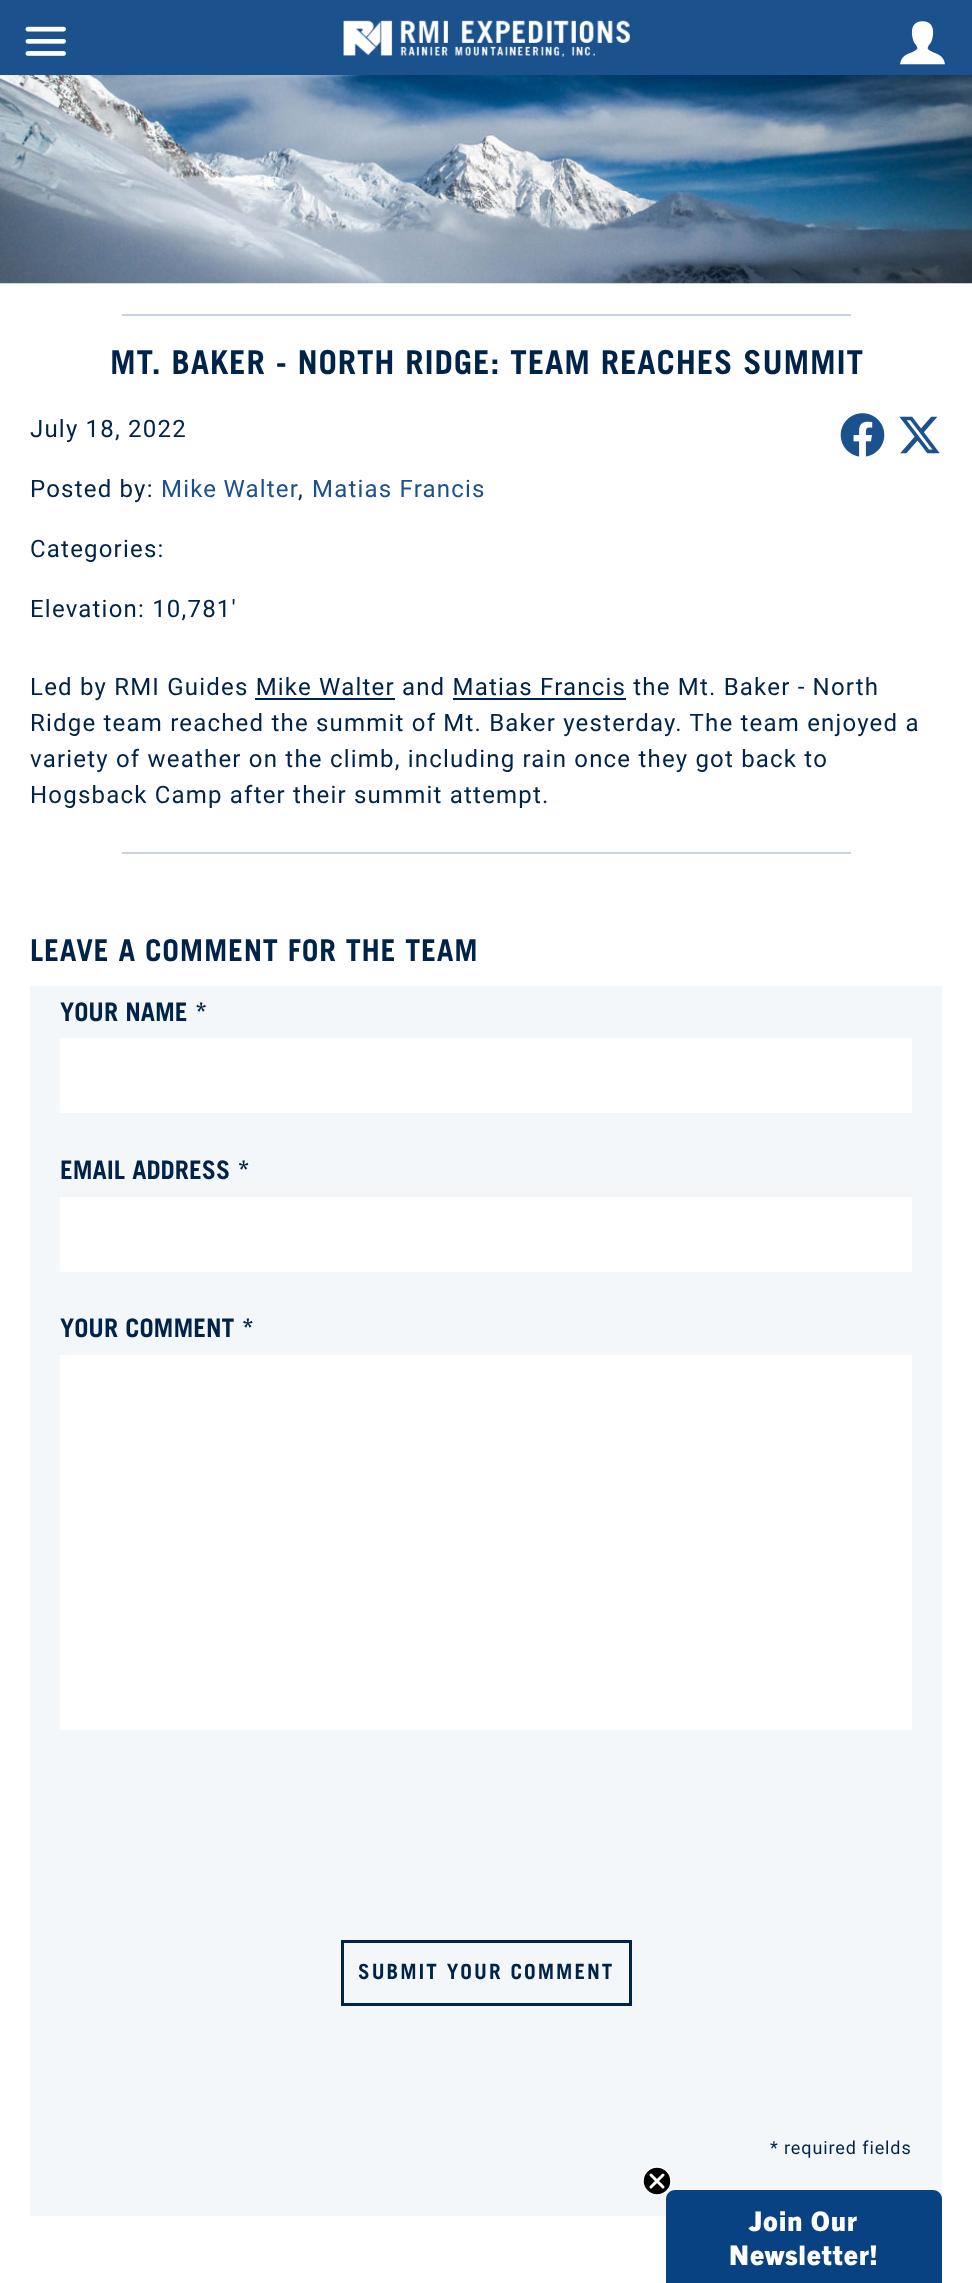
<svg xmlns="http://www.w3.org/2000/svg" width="972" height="2283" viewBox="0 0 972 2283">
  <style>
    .t1 { font: bold 33px Trade Gothic; letter-spacing: 0.85px; fill: #002349; }
    .t2 { font: 24px Roboto; letter-spacing: 1.2px; fill: #002349; }
    .t3 { font: 24px Roboto; letter-spacing: 1.2px; fill: #1b518c; }
    .t4 { font: bold 30px Trade Gothic; letter-spacing: 0.75px; fill: #002349; }
    .t5 { font: bold 25.5px Trade Gothic; fill: #002349; }
    .t6 { font: bold 21px Trade Gothic; letter-spacing: 2px; fill: #002349; }
    .t7 { font: 18px Roboto; letter-spacing: 0.9px; fill: #002349; }
    .t8 { font: 800 27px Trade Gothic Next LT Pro; letter-spacing: 1px; fill: #fff; }
  </style>
  <rect width="100%" height="100%" fill="#fff"/>
  <rect x="0" y="0" width="972" height="75" fill="#1b518c"/>
  <image x="25" y="26" width="41" height="30" href="images/1.png"/>
  <image x="343" y="20" width="287" height="37" href="images/2.png"/>
  <image x="900" y="21" width="45" height="44" href="images/3.png"/>
  <image x="0" y="75" width="972" height="209" href="images/4.png"/>
  <rect x="122" y="314" width="729" height="2" fill="#c6d4e2"/>
  <text x="110" y="374" class="t1">MT. BAKER - NORTH RIDGE: TEAM REACHES SUMMIT</text>
  <text x="30" y="437" class="t2">July 18, 2022</text>
  <text x="30" y="497" class="t2">Posted by:</text>
  <text x="161" y="497" word-spacing="-1" class="t3">Mike Walter</text>
  <text x="298" y="497" class="t2">,</text>
  <text x="312" y="497" class="t3">Matias Francis</text>
  <text x="30" y="557" class="t2">Categories:</text>
  <text x="30" y="617" class="t2">Elevation: 10,781'</text>
  <image x="840" y="413" width="45" height="44" href="images/5.png"/>
  <image x="899" y="416" width="41" height="38" href="images/6.png"/>
  <text x="30" y="695" class="t2">Led by RMI Guides Mike Walter and Matias Francis the Mt. Baker - North</text>
  <rect x="255" y="698" width="140" height="2" fill="#002349"/>
  <rect x="453" y="698" width="173" height="2" fill="#002349"/>
  <text x="30" y="731" class="t2">Ridge team reached the summit of Mt. Baker yesterday. The team enjoyed a</text>
  <text x="30" y="767" class="t2">variety of weather on the climb, including rain once they got back to</text>
  <text x="30" y="803" class="t2">Hogsback Camp after their summit attempt.</text>
  <rect x="122" y="852" width="729" height="2" fill="#c6d4e2"/>
  <text x="30" y="961" class="t4">LEAVE A COMMENT FOR THE TEAM</text>
  <rect x="30" y="986" width="912" height="1230" fill="#f4f7fa"/>
  <text x="60" y="1021" class="t5">YOUR NAME *</text>
  <rect x="60" y="1038" width="852" height="75" fill="#fff"/>
  <text x="60" y="1179" class="t5">EMAIL ADDRESS *</text>
  <rect x="60" y="1197" width="852" height="75" fill="#fff"/>
  <text x="60" y="1337" class="t5">YOUR COMMENT *</text>
  <rect x="60" y="1355" width="852" height="375" fill="#fff"/>
  <rect x="342.5" y="1941.5" width="288" height="63" fill="none" stroke="#002349" stroke-width="3"/>
  <text x="358" y="1979" class="t6">SUBMIT YOUR COMMENT</text>
  <text x="770" y="2154" class="t7">* required fields</text>
  <path d="M675 2190H933C938 2190 942 2194 942 2199V2283H666V2199C666 2194 670 2190 675 2190Z" fill="#094282"/>
  <circle cx="657" cy="2181" r="14" fill="#000" stroke="#fff" stroke-width="1.5"/>
  <path d="M651 2175L663 2187M651 2187L663 2175Z" fill="none" stroke="#fff" stroke-width="3" stroke-linecap="round" stroke-linejoin="round"/>
  <text x="749" y="2231" class="t8">Join Our</text>
  <text x="729" y="2265" class="t8">Newsletter!</text>
</svg>
